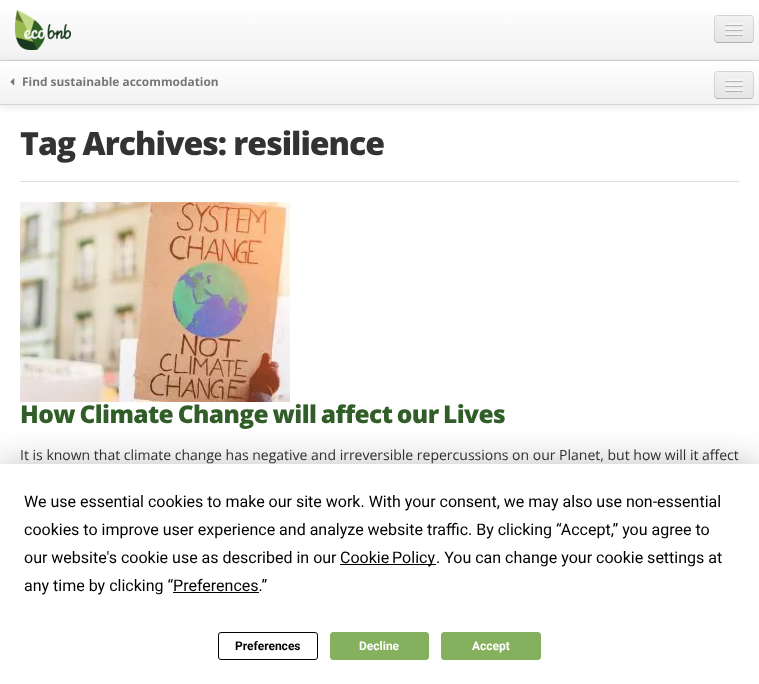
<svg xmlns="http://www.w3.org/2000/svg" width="759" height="684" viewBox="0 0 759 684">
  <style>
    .t1 { font: bold 11.9px Open Sans; fill: #777; }
    .t2 { font: 800 32px Open Sans; letter-spacing: -1px; fill: #333; }
    .t3 { font: 800 24.5px Open Sans; letter-spacing: -0.6px; fill: #315e28; }
    .t4 { font: 14px Open Sans; fill: #333; }
    .t5 { font: 16px Roboto; fill: #000; }
    .t6 { font: bold 12px Roboto; fill: #000; }
    .t7 { font: bold 12px Roboto; fill: #fff; }
  </style>
  <defs>
    <linearGradient id="g1" gradientUnits="userSpaceOnUse" x1="380" y1="0" x2="380" y2="60"><stop offset="0" stop-color="#fff"/><stop offset="1" stop-color="#f2f2f2"/></linearGradient>
    <clipPath id="clip1"><rect x="714" y="15" width="40" height="28" rx="4"/></clipPath>
    <linearGradient id="g2" gradientUnits="userSpaceOnUse" x1="734" y1="16" x2="734" y2="42"><stop offset="0" stop-color="#f2f2f2"/><stop offset="1" stop-color="#e5e5e5"/></linearGradient>
    <linearGradient id="g3" gradientUnits="userSpaceOnUse" x1="380" y1="61" x2="380" y2="104"><stop offset="0" stop-color="#fff"/><stop offset="1" stop-color="#f2f2f2"/></linearGradient>
    <clipPath id="clip2"><rect x="714" y="71" width="40" height="28" rx="4"/></clipPath>
    <linearGradient id="g4" gradientUnits="userSpaceOnUse" x1="734" y1="72" x2="734" y2="98"><stop offset="0" stop-color="#f2f2f2"/><stop offset="1" stop-color="#e5e5e5"/></linearGradient>
  </defs>
  <rect width="100%" height="100%" fill="#fff"/>
  <rect x="0" y="12" width="759" height="48" fill="url(#g1)"/>
  <rect x="0" y="60" width="759" height="1" fill="#d4d4d4"/>
  <rect x="0" y="62" width="759" height="44" fill="#0000001a" filter="blur(5px)"/>
  <image x="15" y="10" width="56" height="40" href="images/1.png"/>
  <rect x="714" y="15" width="40" height="28" rx="4" fill="#ededed"/>
  <g clip-path="url(#clip1)">
    <rect x="714" y="16" width="40" height="26" fill="url(#g2)"/>
  </g>
  <path d="M752.5 41.5C752 42 751 42.5 750 42.5H718C717 42.5 716 42 715.5 41.5" fill="none" stroke="#00000040"/>
  <path d="M715.5 41.5C715 41 714.5 40 714.5 39V19C714.5 18 715 17 715.5 16.5C716 16 717 15.5 718 15.5H750C751 15.5 752 16 752.5 16.5C753 17 753.5 18 753.5 19V39C753.5 40 753 41 752.5 41.5" fill="none" stroke="#0000001a"/>
  <path d="M725 24.5C724 26.5 728.5 26 728.5 26H739.5C739.5 26 744 26.5 743 24.5C742 25.5 735.5 25 734 25C732.5 25 726 25.5 725 24.5Z" fill="#b2b2b2"/>
  <rect x="725" y="23" width="18" height="2" rx="1" fill="#f5f5f5"/>
  <path d="M725 29.5C724 31.5 728.5 31 728.5 31H739.5C739.5 31 744 31.5 743 29.5C742 30.5 735.5 30 734 30C732.5 30 726 30.5 725 29.5Z" fill="#b0b0b0"/>
  <rect x="725" y="28" width="18" height="2" rx="1" fill="#f5f5f5"/>
  <path d="M725 34.5C724 36.5 728.5 36 728.5 36H739.5C739.5 36 744 36.5 743 34.5C742 35.5 735.5 35 734 35C732.5 35 726 35.5 725 34.5Z" fill="#aeaeae"/>
  <rect x="725" y="33" width="18" height="2" rx="1" fill="#f5f5f5"/>
  <rect x="0" y="61" width="759" height="43" fill="url(#g3)"/>
  <rect x="0" y="104" width="759" height="1" fill="#d4d4d4"/>
  <image x="10" y="78" width="5" height="8" href="images/2.png"/>
  <text x="22" y="86" class="t1">Find sustainable accommodation</text>
  <rect x="714" y="71" width="40" height="28" rx="4" fill="#ededed"/>
  <g clip-path="url(#clip2)">
    <rect x="714" y="72" width="40" height="26" fill="url(#g4)"/>
  </g>
  <path d="M752.5 97.5C752 98 751 98.5 750 98.5H718C717 98.5 716 98 715.5 97.5" fill="none" stroke="#b2b2b2"/>
  <path d="M715.5 97.5C715 97 714.5 96 714.5 95V75C714.5 74 715 73 715.5 72.5C716 72 717 71.5 718 71.5H750C751 71.5 752 72 752.5 72.5C753 73 753.5 74 753.5 75V95C753.5 96 753 97 752.5 97.5" fill="none" stroke="#0000001a"/>
  <path d="M725 80.5C724 82.5 728.5 82 728.5 82H739.5C739.5 82 744 82.5 743 80.5C742 81.5 735.5 81 734 81C732.5 81 726 81.5 725 80.5Z" fill="#b2b2b2"/>
  <rect x="725" y="79" width="18" height="2" rx="1" fill="#f5f5f5"/>
  <path d="M725 85.5C724 87.5 728.5 87 728.5 87H739.5C739.5 87 744 87.5 743 85.5C742 86.5 735.5 86 734 86C732.5 86 726 86.5 725 85.5Z" fill="#b0b0b0"/>
  <rect x="725" y="84" width="18" height="2" rx="1" fill="#f5f5f5"/>
  <path d="M725 90.5C724 92.5 728.5 92 728.5 92H739.5C739.5 92 744 92.5 743 90.5C742 91.5 735.5 91 734 91C732.5 91 726 91.5 725 90.5Z" fill="#aeaeae"/>
  <rect x="725" y="89" width="18" height="2" rx="1" fill="#f5f5f5"/>
  <rect x="20" y="181" width="719" height="1" fill="#ddd"/>
  <text x="20" y="155" class="t2">Tag Archives: resilience</text>
  <image x="20" y="202" width="270" height="200" href="images/3.png"/>
  <text x="20" y="423" word-spacing="-1.25" class="t3">How Climate Change will affect our Lives</text>
  <text x="20" y="460" class="t4">It is known that climate change has negative and irreversible repercussions on our Planet, but how will it affect</text>
  <rect x="0" y="464" width="759" height="220" fill="#00000040" filter="blur(17.5px)"/>
  <rect x="0" y="464" width="759" height="220" fill="#fff"/>
  <text x="24" y="507" class="t5">We use essential cookies to make our site work. With your consent, we may also use non-essential</text>
  <text x="24" y="535" class="t5">cookies to improve user experience and analyze website traffic. By clicking “Accept,” you agree to</text>
  <text x="24" y="563" class="t5">our website's cookie use as described in our</text>
  <rect x="340" y="564" width="96" height="1" fill="#000"/>
  <text x="340" y="563" word-spacing="-1" class="t5">Cookie Policy</text>
  <text x="436" y="563" class="t5">. You can change your cookie settings at</text>
  <text x="24" y="591" class="t5">any time by clicking “Preferences.”</text>
  <rect x="173" y="592" width="86" height="1" fill="#000"/>
  <rect x="218.5" y="632.5" width="99" height="27" rx="2.5" fill="none" stroke="#000"/>
  <text x="235" y="650" class="t6">Preferences</text>
  <rect x="330.5" y="632.5" width="98" height="27" rx="2.5" fill="#85b15e" stroke="#85b15e"/>
  <text x="359" y="650" class="t7">Decline</text>
  <rect x="441.5" y="632.5" width="99" height="27" rx="2.5" fill="#85b15e" stroke="#85b15e"/>
  <text x="472" y="650" class="t7">Accept</text>
</svg>
